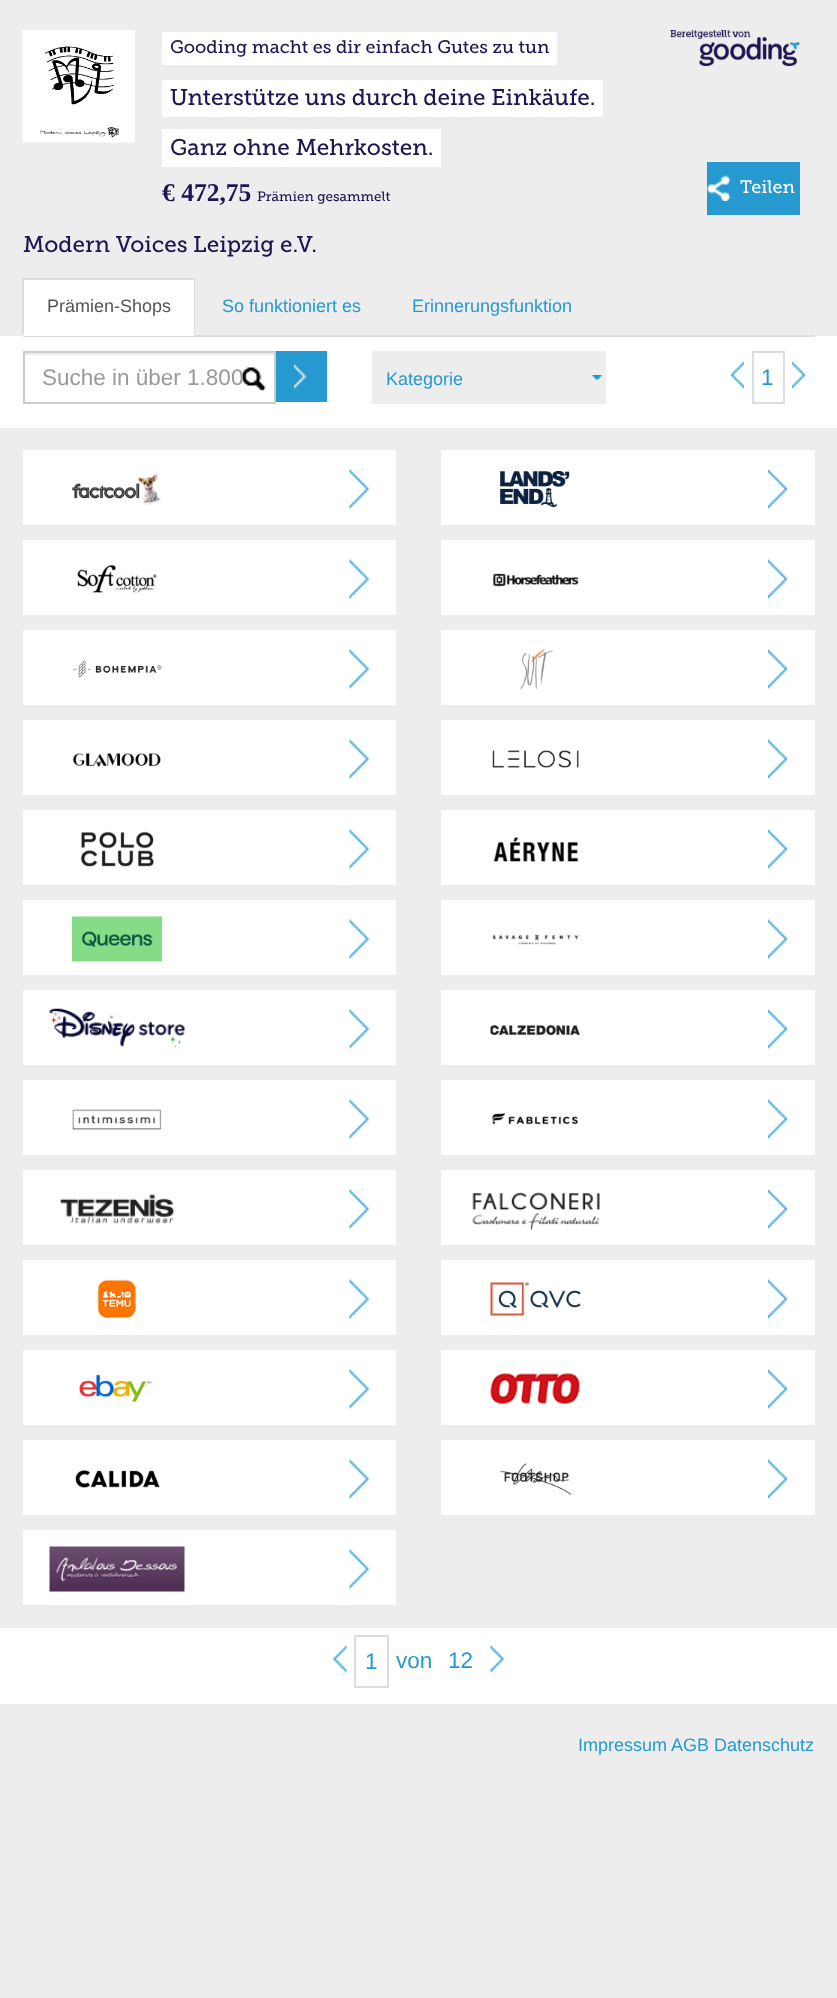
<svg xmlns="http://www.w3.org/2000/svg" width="837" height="1998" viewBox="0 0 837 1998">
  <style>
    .t1 { font: 18px Museo Slab; fill: #211452; }
    .t2 { font: 22.5px Museo Slab; fill: #211452; }
    .t3 { font: bold 25.5px Liberation Serif; fill: #211452; }
    .t4 { font: 13.5px Museo Slab; fill: #211452; }
    .t5 { font: 18px Museo Slab; fill: #fff; }
    .t6 { font: 18px Liberation Sans; fill: #555; }
    .t7 { font: 18px Liberation Sans; fill: #2699d1; }
    .t8 { font: 22.5px Liberation Sans; fill: #999; }
    .t9 { font: 22.5px Liberation Sans; fill: #2699d1; }
  </style>
  <rect width="100%" height="100%" fill="#ededed"/>
  <image x="22" y="30" width="113" height="113" href="images/1.png"/>
  <rect x="162" y="32" width="395" height="33" fill="#fff"/>
  <text x="170" y="53" class="t1">Gooding macht es dir einfach Gutes zu tun</text>
  <rect x="162" y="80" width="441" height="37" fill="#fff"/>
  <text x="170" y="105" class="t2">Unterstütze uns durch deine Einkäufe.</text>
  <rect x="162" y="129" width="279" height="38" fill="#fff"/>
  <text x="170" y="155" class="t2">Ganz ohne Mehrkosten.</text>
  <image x="670" y="30" width="130" height="36" href="images/2.png"/>
  <text x="162" y="201" class="t3">€ 472,75</text>
  <text x="257" y="201" class="t4">Prämien gesammelt</text>
  <rect x="707" y="162" width="93" height="53" fill="#2699d1"/>
  <image x="707" y="175" width="24" height="26" href="images/3.png"/>
  <text x="740" y="193" class="t5">Teilen</text>
  <text x="23" y="252" class="t2">Modern Voices Leipzig e.V.</text>
  <rect x="0" y="336" width="837" height="92" fill="#fff"/>
  <rect x="23" y="335" width="792" height="2" fill="#ddd"/>
  <rect x="23" y="280" width="172" height="56" fill="#fff"/>
  <rect x="23" y="278" width="172" height="2" fill="#ddd"/>
  <path d="M195 278V336L194 334V279Z" fill="#ddd"/>
  <path d="M22 336V278L24 279V334Z" fill="#ddd"/>
  <text x="47" y="312" class="t6">Prämien-Shops</text>
  <text x="222" y="312" class="t7">So funktioniert es</text>
  <text x="412" y="312" class="t7">Erinnerungsfunktion</text>
  <image x="241" y="367" width="25" height="24" href="images/4.png"/>
  <rect x="24" y="353" width="251" height="2" fill="#ececec"/>
  <rect x="24" y="352" width="251" height="51" fill="none" stroke="#ccc" stroke-width="2"/>
  <text x="42" y="385" class="t8">Suche in über 1.800</text>
  <rect x="276" y="351" width="51" height="51" fill="#2699d1"/>
  <image x="294" y="361" width="13" height="31" href="images/5.png"/>
  <rect x="372" y="351" width="234" height="53" fill="#ededed"/>
  <image x="592" y="375" width="10" height="5" href="images/6.png"/>
  <text x="386" y="385" class="t7">Kategorie</text>
  <image x="730" y="361" width="14" height="28" href="images/7.png"/>
  <rect x="753" y="352" width="31" height="51" fill="none" stroke="#ddd" stroke-width="2"/>
  <text x="761" y="385" class="t9">1</text>
  <image x="792" y="360" width="14" height="30" href="images/8.png"/>
  <rect x="23" y="450" width="373" height="75" fill="#fff"/>
  <image x="72" y="473" width="89" height="32" href="images/9.png"/>
  <image x="349" y="469" width="21" height="40" href="images/10.png"/>
  <rect x="441" y="450" width="374" height="75" fill="#fff"/>
  <image x="500" y="471" width="74" height="36" href="images/11.png"/>
  <image x="768" y="469" width="20" height="40" href="images/12.png"/>
  <rect x="23" y="540" width="373" height="75" fill="#fff"/>
  <image x="77" y="564" width="80" height="29" href="images/13.png"/>
  <image x="349" y="559" width="21" height="40" href="images/10.png"/>
  <rect x="441" y="540" width="374" height="75" fill="#fff"/>
  <image x="492" y="573" width="87" height="14" href="images/14.png"/>
  <image x="768" y="559" width="20" height="40" href="images/12.png"/>
  <rect x="23" y="630" width="373" height="75" fill="#fff"/>
  <image x="73" y="660" width="89" height="18" href="images/15.png"/>
  <image x="349" y="649" width="21" height="40" href="images/10.png"/>
  <rect x="441" y="630" width="374" height="75" fill="#fff"/>
  <image x="520" y="649" width="33" height="41" href="images/16.png"/>
  <image x="768" y="649" width="20" height="40" href="images/12.png"/>
  <rect x="23" y="720" width="373" height="75" fill="#fff"/>
  <image x="72" y="753" width="89" height="15" href="images/17.png"/>
  <image x="349" y="739" width="21" height="40" href="images/10.png"/>
  <rect x="441" y="720" width="374" height="75" fill="#fff"/>
  <image x="492" y="749" width="87" height="19" href="images/18.png"/>
  <image x="768" y="739" width="20" height="40" href="images/12.png"/>
  <rect x="23" y="810" width="373" height="75" fill="#fff"/>
  <image x="80" y="831" width="74" height="36" href="images/19.png"/>
  <image x="349" y="829" width="21" height="40" href="images/10.png"/>
  <rect x="441" y="810" width="374" height="75" fill="#fff"/>
  <image x="493" y="837" width="86" height="25" href="images/20.png"/>
  <image x="768" y="829" width="20" height="40" href="images/12.png"/>
  <rect x="23" y="900" width="373" height="75" fill="#fff"/>
  <image x="72" y="916" width="90" height="46" href="images/21.png"/>
  <image x="349" y="919" width="21" height="40" href="images/10.png"/>
  <rect x="441" y="900" width="374" height="75" fill="#fff"/>
  <image x="492" y="934" width="87" height="11" href="images/22.png"/>
  <image x="768" y="919" width="20" height="40" href="images/12.png"/>
  <rect x="23" y="990" width="373" height="75" fill="#fff"/>
  <image x="49" y="1008" width="136" height="40" href="images/23.png"/>
  <image x="349" y="1009" width="21" height="40" href="images/10.png"/>
  <rect x="441" y="990" width="374" height="75" fill="#fff"/>
  <image x="490" y="1024" width="90" height="12" href="images/24.png"/>
  <image x="768" y="1009" width="20" height="40" href="images/12.png"/>
  <rect x="23" y="1080" width="373" height="75" fill="#fff"/>
  <image x="72" y="1109" width="90" height="21" href="images/25.png"/>
  <image x="349" y="1099" width="21" height="40" href="images/10.png"/>
  <rect x="441" y="1080" width="374" height="75" fill="#fff"/>
  <image x="492" y="1113" width="87" height="12" href="images/26.png"/>
  <image x="768" y="1099" width="20" height="40" href="images/12.png"/>
  <rect x="23" y="1170" width="373" height="75" fill="#fff"/>
  <image x="60" y="1194" width="114" height="30" href="images/27.png"/>
  <image x="349" y="1189" width="21" height="40" href="images/10.png"/>
  <rect x="441" y="1170" width="374" height="75" fill="#fff"/>
  <image x="472" y="1192" width="128" height="39" href="images/28.png"/>
  <image x="768" y="1189" width="20" height="40" href="images/12.png"/>
  <rect x="23" y="1260" width="373" height="75" fill="#fff"/>
  <image x="98" y="1280" width="38" height="38" href="images/29.png"/>
  <image x="349" y="1279" width="21" height="40" href="images/10.png"/>
  <rect x="441" y="1260" width="374" height="75" fill="#fff"/>
  <image x="490" y="1282" width="91" height="36" href="images/30.png"/>
  <image x="768" y="1279" width="20" height="40" href="images/12.png"/>
  <rect x="23" y="1350" width="373" height="75" fill="#fff"/>
  <image x="79" y="1374" width="73" height="28" href="images/31.png"/>
  <image x="349" y="1369" width="21" height="40" href="images/10.png"/>
  <rect x="441" y="1350" width="374" height="75" fill="#fff"/>
  <image x="490" y="1373" width="90" height="32" href="images/32.png"/>
  <image x="768" y="1369" width="20" height="40" href="images/12.png"/>
  <rect x="23" y="1440" width="373" height="75" fill="#fff"/>
  <image x="75" y="1470" width="85" height="18" href="images/33.png"/>
  <image x="349" y="1459" width="21" height="40" href="images/10.png"/>
  <rect x="441" y="1440" width="374" height="75" fill="#fff"/>
  <image x="500" y="1463" width="71" height="32" href="images/34.png"/>
  <image x="768" y="1459" width="20" height="40" href="images/12.png"/>
  <rect x="23" y="1530" width="373" height="75" fill="#fff"/>
  <image x="49" y="1546" width="136" height="46" href="images/35.png"/>
  <image x="349" y="1549" width="21" height="40" href="images/10.png"/>
  <rect x="0" y="1628" width="837" height="76" fill="#fff"/>
  <image x="333" y="1645" width="14" height="28" href="images/36.png"/>
  <rect x="355" y="1636" width="33" height="51" fill="none" stroke="#ddd" stroke-width="2"/>
  <text x="365" y="1669" class="t9">1</text>
  <text x="396" y="1668" class="t9">von</text>
  <text x="448" y="1668" class="t9">12</text>
  <image x="490" y="1644" width="14" height="30" href="images/37.png"/>
  <text x="578" y="1751" class="t7">Impressum</text>
  <text x="671" y="1751" class="t7">AGB Datenschutz</text>
</svg>
